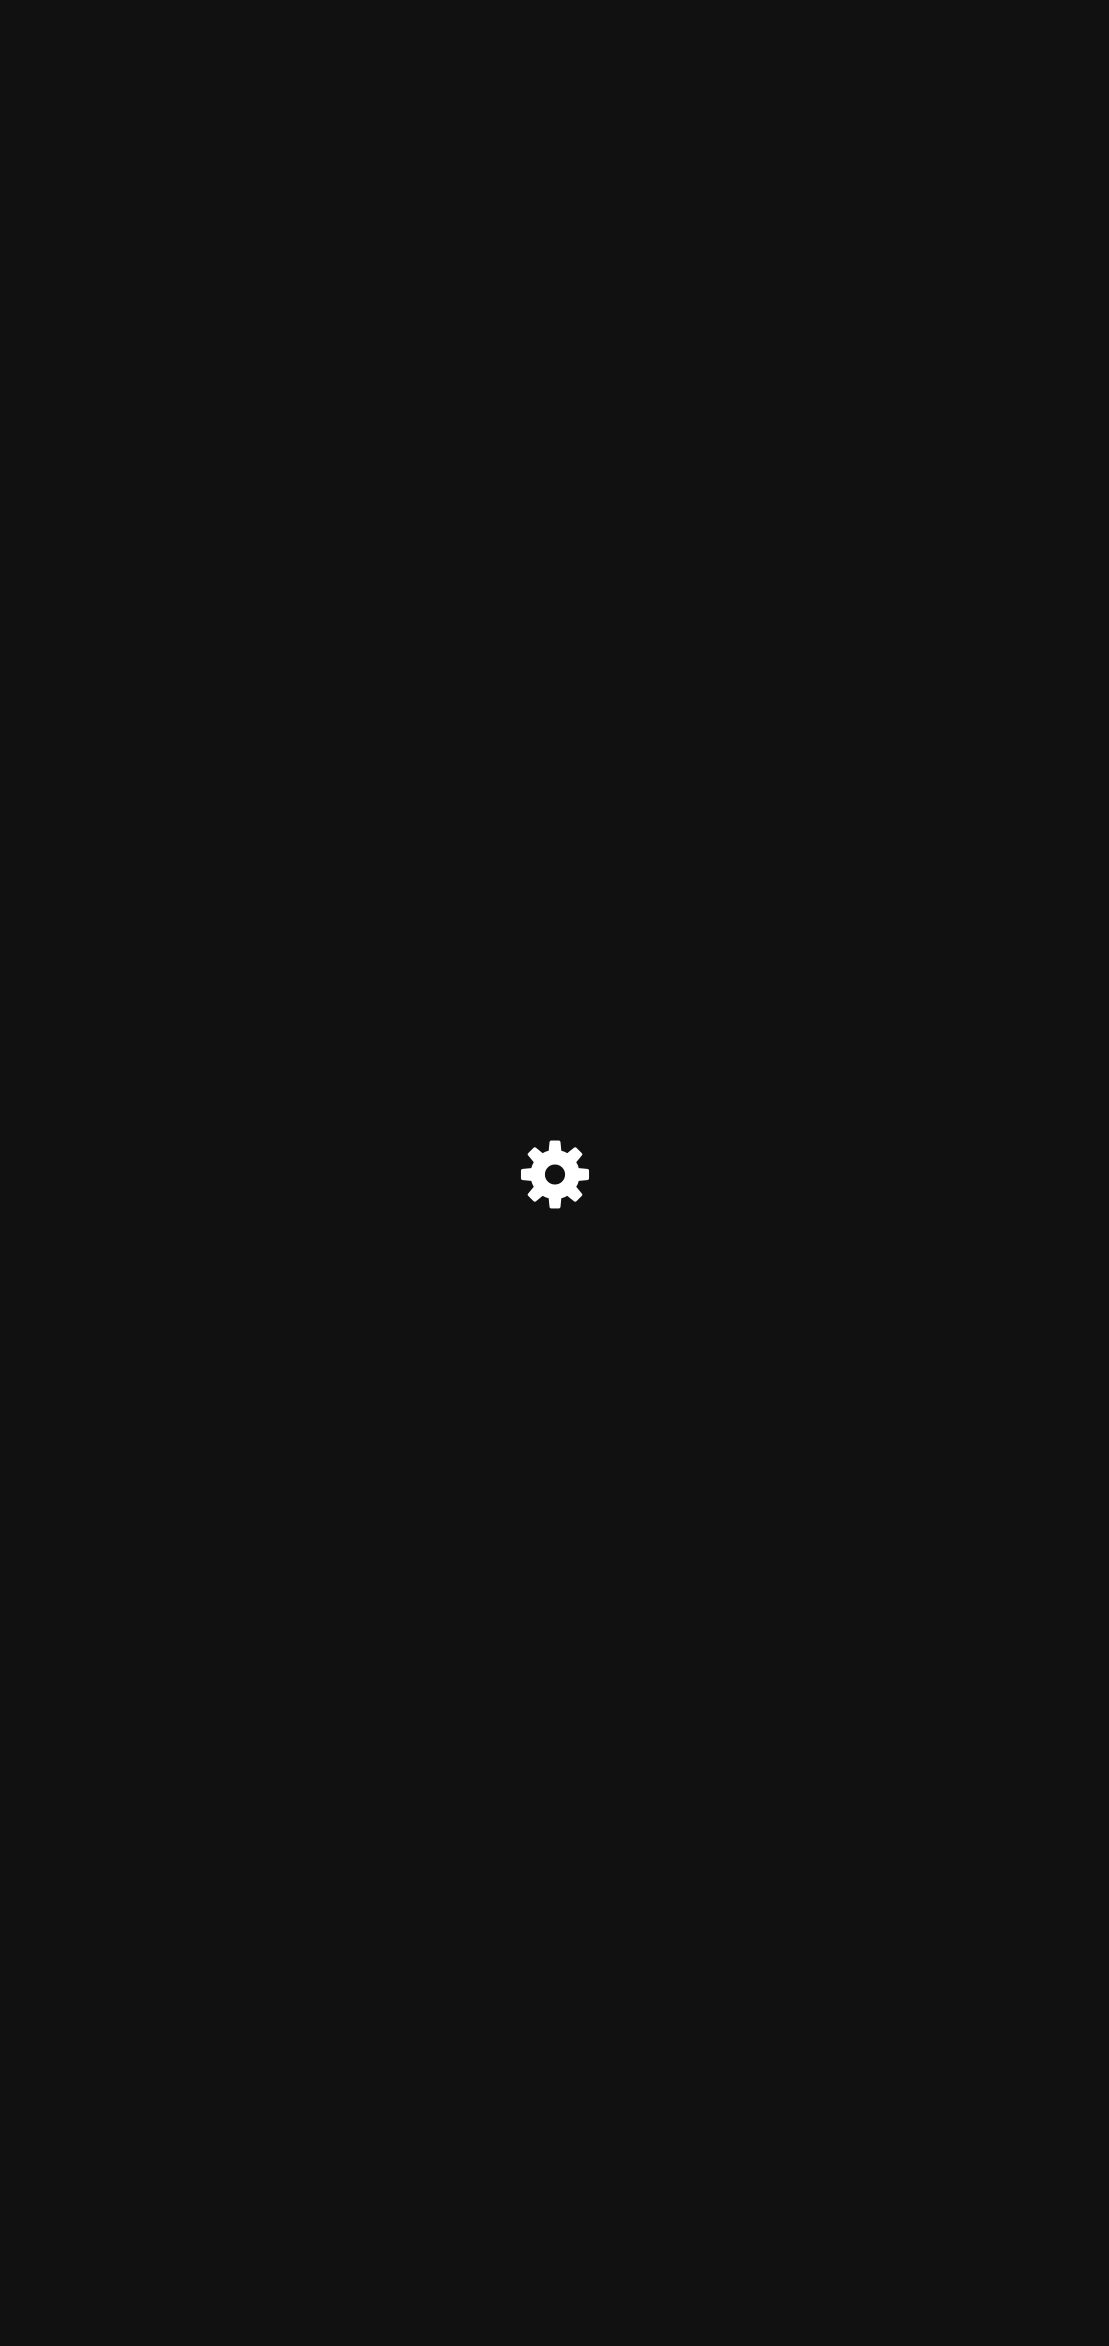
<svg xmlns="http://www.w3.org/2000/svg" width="1109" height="2346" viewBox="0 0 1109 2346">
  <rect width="100%" height="100%" fill="#111"/>
  <image x="520" y="1140" width="70" height="69" href="images/1.png"/>
</svg>
